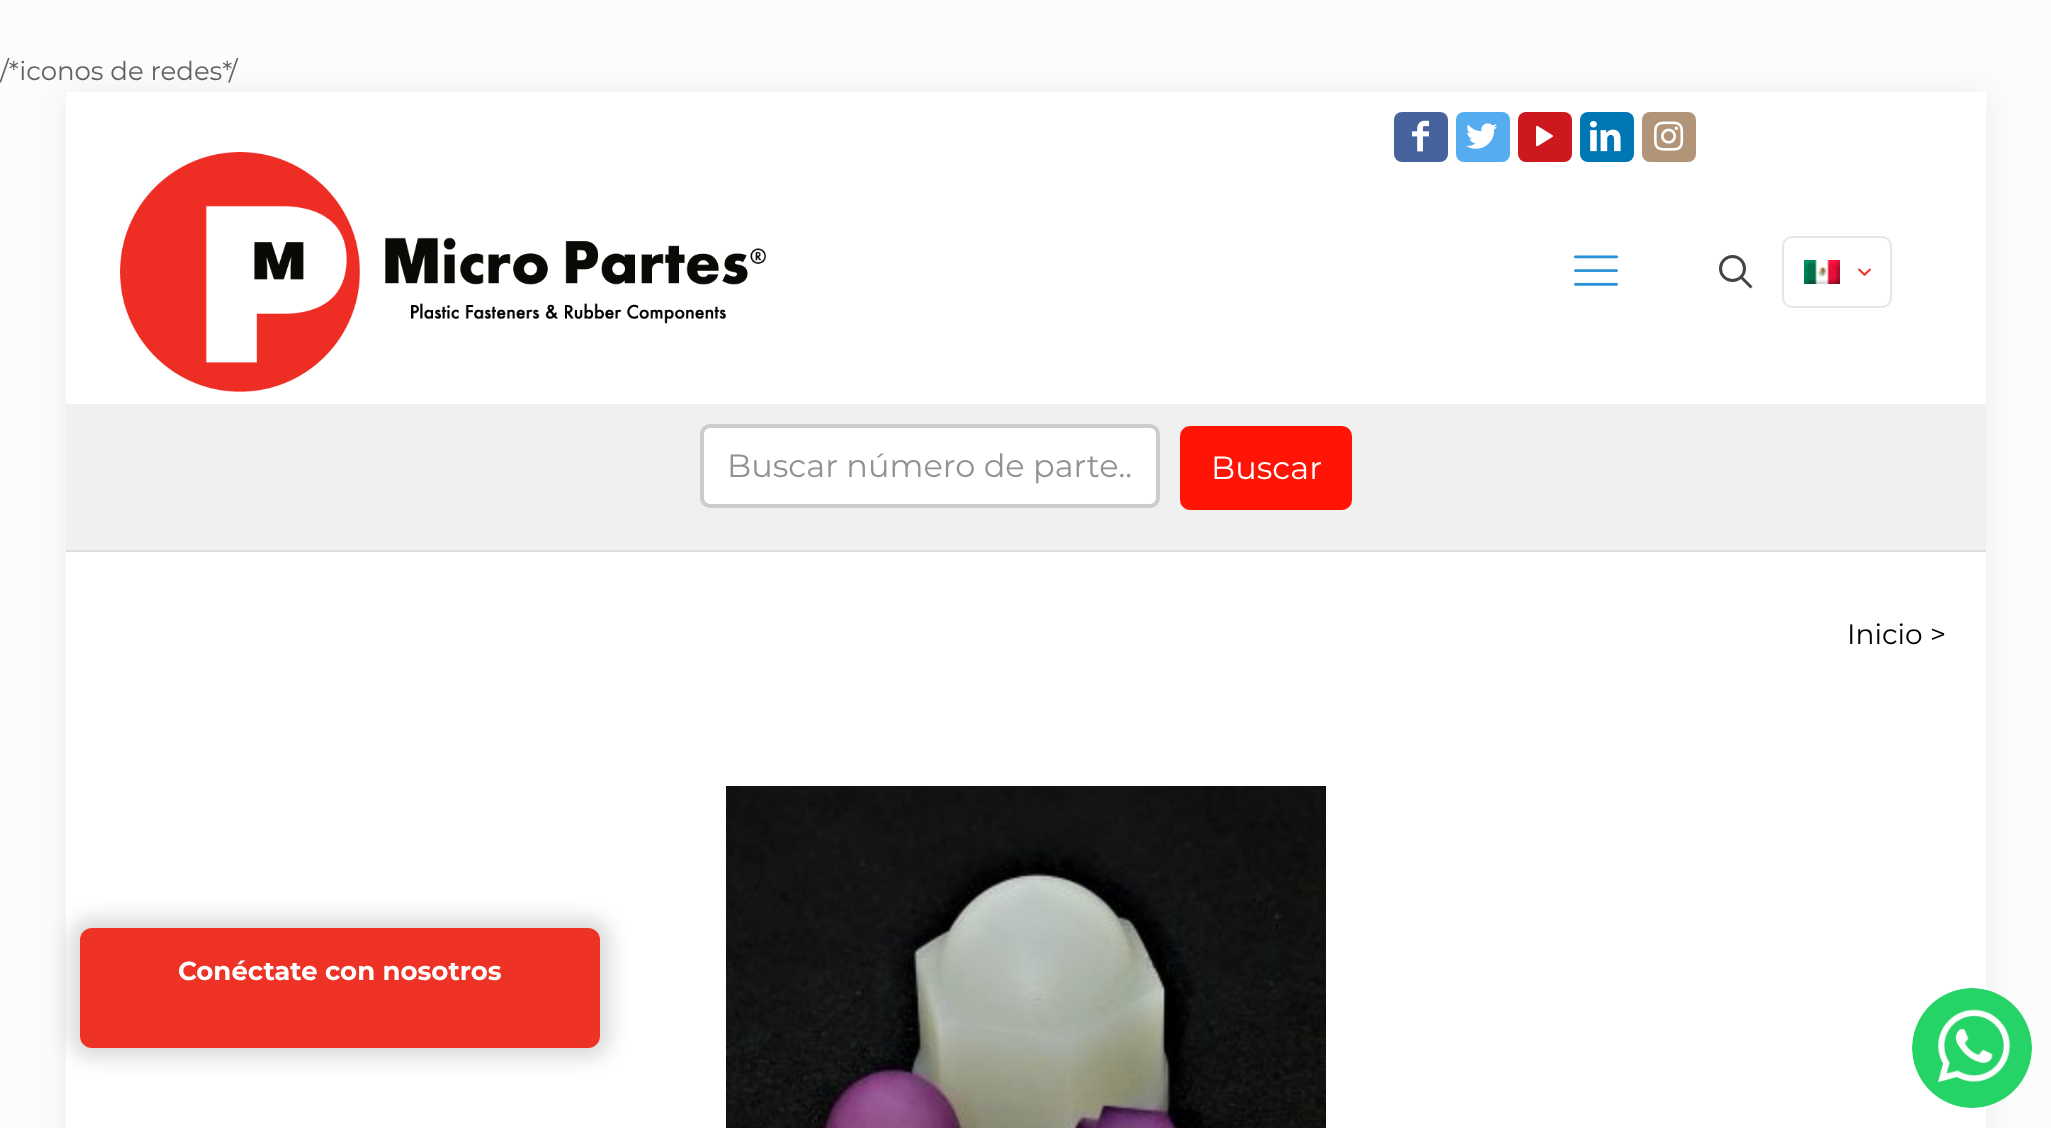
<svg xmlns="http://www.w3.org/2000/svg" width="2051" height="1128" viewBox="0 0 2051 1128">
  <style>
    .t1 { font: 26px Montserrat; fill: #626262; }
    .t2 { font: 32px Montserrat; fill: #929292; }
    .t3 { font: 32px Montserrat; fill: #fff; }
    .t4 { font: 28px Montserrat; fill: #000; }
    .t5 { font: bold 26px Montserrat; fill: #fff; }
  </style>
  <rect width="100%" height="100%" fill="#fcfcfc"/>
  <text x="0" y="80" class="t1">/*iconos de redes*/</text>
  <rect x="66" y="92" width="1920" height="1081" fill="#0000000f" filter="blur(15px)"/>
  <rect x="66" y="92" width="1920" height="312" fill="#fff"/>
  <rect x="1394" y="112" width="54" height="50" rx="8" fill="#47639e"/>
  <image x="1412" y="120" width="17" height="32" href="images/1.png"/>
  <rect x="1456" y="112" width="54" height="50" rx="8" fill="#55acee"/>
  <image x="1466" y="123" width="32" height="26" href="images/2.png"/>
  <rect x="1518" y="112" width="54" height="50" rx="8" fill="#cc181e"/>
  <image x="1536" y="125" width="17" height="22" href="images/3.png"/>
  <rect x="1580" y="112" width="54" height="50" rx="8" fill="#0077b5"/>
  <image x="1590" y="121" width="31" height="31" href="images/4.png"/>
  <rect x="1642" y="112" width="54" height="50" rx="8" fill="#b29579"/>
  <image x="1654" y="121" width="30" height="30" href="images/5.png"/>
  <rect x="66" y="552" width="1920" height="576" fill="#fff"/>
  <image x="120" y="152" width="646" height="240" href="images/6.png"/>
  <image x="1574" y="255" width="44" height="31" href="images/7.png"/>
  <circle cx="1732.5" cy="268.5" r="12" fill="none" stroke="#444" stroke-width="3"/>
  <path d="M1741 277L1751.5 287.5" fill="none" stroke="#444" stroke-width="3"/>
  <rect x="1783" y="237" width="108" height="70" rx="9" fill="none" stroke="#e6e6e6" stroke-width="2"/>
  <image x="1804" y="260" width="36" height="24" href="images/8.png"/>
  <image x="1858" y="268" width="13" height="8" href="images/9.png"/>
  <rect x="66" y="404" width="1920" height="146" fill="#f0f0f0"/>
  <rect x="66" y="550" width="1920" height="2" fill="#ddd"/>
  <rect x="702" y="426" width="456" height="80" rx="8" fill="#fff" stroke="#ccc" stroke-width="4"/>
  <text x="727" y="477" class="t2">Buscar número de parte..</text>
  <rect x="1180" y="426" width="172" height="84" rx="10" fill="#ff1406"/>
  <text x="1211" y="479" class="t3">Buscar</text>
  <text x="1847" y="644" class="t4">Inicio &gt;</text>
  <rect x="70" y="918" width="540" height="140" rx="22" fill="#00000026" filter="blur(10px)"/>
  <rect x="80" y="928" width="520" height="120" rx="12" fill="#ee3225"/>
  <text x="178" y="980" class="t5">Conéctate con nosotros</text>
  <image x="726" y="786" width="600" height="342" href="images/10.png"/>
  <image x="1912" y="988" width="120" height="120" href="images/11.png"/>
</svg>
